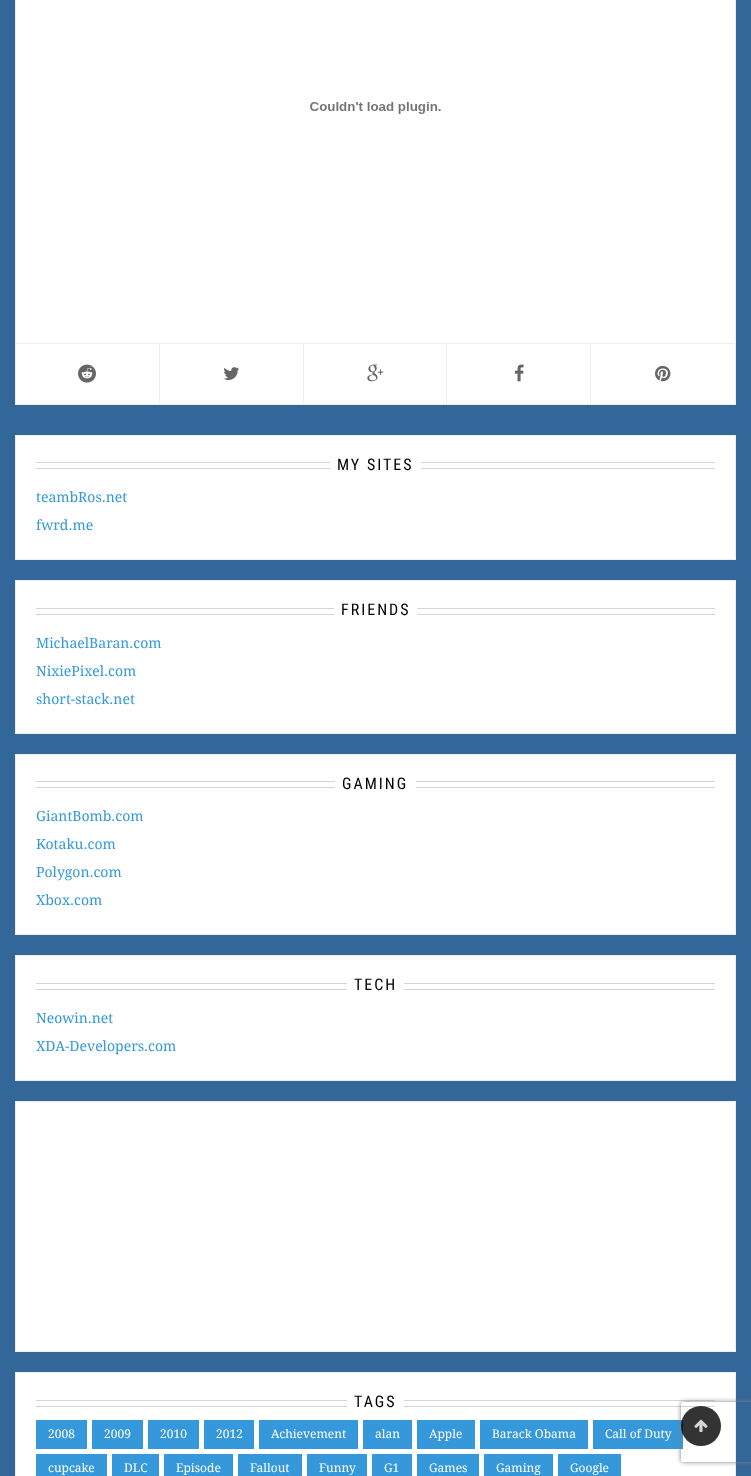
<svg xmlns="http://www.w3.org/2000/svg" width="751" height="1476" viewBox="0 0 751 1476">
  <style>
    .t1 { font: 16px Roboto Condensed; letter-spacing: 2px; fill: #000; }
    .t2 { font: 14px Droid Serif; fill: #3498db; }
    .t3 { font: 12px Droid Serif; fill: #fff; }
  </style>
  <defs>
    <clipPath id="clip1"><path d="M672 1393H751V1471H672ZM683 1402H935C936 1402 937 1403 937 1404V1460C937 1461 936 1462 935 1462H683C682 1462 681 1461 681 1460V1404C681 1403 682 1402 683 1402Z" clip-rule="evenodd"/></clipPath>
  </defs>
  <rect width="100%" height="100%" fill="#369"/>
  <rect x="15.5" y="-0.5" width="720" height="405" fill="#fff" stroke="#eee"/>
  <image x="310" y="102" width="131" height="12" href="images/1.png"/>
  <rect x="16" y="343" width="719" height="1" fill="#eee"/>
  <rect x="159" y="344" width="1" height="60" fill="#eee"/>
  <image x="78" y="364" width="18" height="19" href="images/2.png"/>
  <rect x="303" y="344" width="1" height="60" fill="#eee"/>
  <image x="223" y="367" width="17" height="13" href="images/3.png"/>
  <rect x="446" y="344" width="1" height="60" fill="#eee"/>
  <image x="367" y="364" width="17" height="18" href="images/4.png"/>
  <rect x="590" y="344" width="1" height="60" fill="#eee"/>
  <image x="514" y="364" width="10" height="18" href="images/5.png"/>
  <image x="655" y="365" width="16" height="17" href="images/6.png"/>
  <rect x="15.5" y="435.5" width="720" height="124" fill="#fff" stroke="#eee"/>
  <rect x="36" y="462" width="679" height="1" fill="#d5d5d5"/>
  <rect x="36" y="468" width="679" height="1" fill="#d5d5d5"/>
  <rect x="330" y="462" width="91" height="7" fill="#fff"/>
  <text x="337" y="470" class="t1">MY SITES</text>
  <text x="36" y="502" class="t2">teambRos.net</text>
  <text x="36" y="530" class="t2">fwrd.me</text>
  <rect x="15.5" y="580.5" width="720" height="153" fill="#fff" stroke="#eee"/>
  <rect x="36" y="608" width="679" height="1" fill="#d5d5d5"/>
  <rect x="36" y="614" width="679" height="1" fill="#d5d5d5"/>
  <rect x="334" y="608" width="83" height="7" fill="#fff"/>
  <text x="341" y="615" class="t1">FRIENDS</text>
  <text x="36" y="648" class="t2">MichaelBaran.com</text>
  <text x="36" y="676" class="t2">NixiePixel.com</text>
  <text x="36" y="704" class="t2">short-stack.net</text>
  <rect x="15.5" y="754.5" width="720" height="180" fill="#fff" stroke="#eee"/>
  <rect x="36" y="781" width="679" height="1" fill="#d5d5d5"/>
  <rect x="36" y="787" width="679" height="1" fill="#d5d5d5"/>
  <rect x="335" y="781" width="81" height="7" fill="#fff"/>
  <text x="342" y="789" class="t1">GAMING</text>
  <text x="36" y="821" class="t2">GiantBomb.com</text>
  <text x="36" y="849" class="t2">Kotaku.com</text>
  <text x="36" y="877" class="t2">Polygon.com</text>
  <text x="36" y="905" class="t2">Xbox.com</text>
  <rect x="15.5" y="955.5" width="720" height="125" fill="#fff" stroke="#eee"/>
  <rect x="36" y="983" width="679" height="1" fill="#d5d5d5"/>
  <rect x="36" y="989" width="679" height="1" fill="#d5d5d5"/>
  <rect x="347" y="983" width="57" height="7" fill="#fff"/>
  <text x="354" y="990" class="t1">TECH</text>
  <text x="36" y="1023" class="t2">Neowin.net</text>
  <text x="36" y="1051" class="t2">XDA-Developers.com</text>
  <rect x="15.5" y="1101.5" width="720" height="250" fill="#fff" stroke="#eee"/>
  <rect x="15.5" y="1372.5" width="720" height="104" fill="#fff" stroke="#eee"/>
  <rect x="36" y="1400" width="679" height="1" fill="#d5d5d5"/>
  <rect x="36" y="1406" width="679" height="1" fill="#d5d5d5"/>
  <rect x="347" y="1400" width="57" height="7" fill="#fff"/>
  <text x="354" y="1407" class="t1">TAGS</text>
  <rect x="36" y="1420" width="51" height="29" fill="#3498db"/>
  <text x="48" y="1438" class="t3">2008</text>
  <rect x="92" y="1420" width="51" height="29" fill="#3498db"/>
  <text x="104" y="1438" class="t3">2009</text>
  <rect x="148" y="1420" width="51" height="29" fill="#3498db"/>
  <text x="160" y="1438" class="t3">2010</text>
  <rect x="204" y="1420" width="50" height="29" fill="#3498db"/>
  <text x="216" y="1438" class="t3">2012</text>
  <rect x="259" y="1420" width="99" height="29" fill="#3498db"/>
  <text x="271" y="1438" class="t3">Achievement</text>
  <rect x="363" y="1420" width="49" height="29" fill="#3498db"/>
  <text x="375" y="1438" class="t3">alan</text>
  <rect x="417" y="1420" width="58" height="29" fill="#3498db"/>
  <text x="429" y="1438" class="t3">Apple</text>
  <rect x="480" y="1420" width="108" height="29" fill="#3498db"/>
  <text x="492" y="1438" class="t3">Barack Obama</text>
  <rect x="593" y="1420" width="90" height="29" fill="#3498db"/>
  <text x="605" y="1438" class="t3">Call of Duty</text>
  <rect x="36" y="1454" width="71" height="22" fill="#3498db"/>
  <text x="48" y="1472" class="t3">cupcake</text>
  <rect x="112" y="1454" width="47" height="22" fill="#3498db"/>
  <text x="124" y="1472" class="t3">DLC</text>
  <rect x="164" y="1454" width="69" height="22" fill="#3498db"/>
  <text x="176" y="1472" class="t3">Episode</text>
  <rect x="238" y="1454" width="64" height="22" fill="#3498db"/>
  <text x="250" y="1472" class="t3">Fallout</text>
  <rect x="307" y="1454" width="60" height="22" fill="#3498db"/>
  <text x="319" y="1472" class="t3">Funny</text>
  <rect x="372" y="1454" width="40" height="22" fill="#3498db"/>
  <text x="384" y="1472" class="t3">G1</text>
  <rect x="417" y="1454" width="62" height="22" fill="#3498db"/>
  <text x="429" y="1472" class="t3">Games</text>
  <rect x="484" y="1454" width="69" height="22" fill="#3498db"/>
  <text x="496" y="1472" class="t3">Gaming</text>
  <rect x="558" y="1454" width="63" height="22" fill="#3498db"/>
  <text x="570" y="1472" class="t3">Google</text>
  <circle cx="701" cy="1426" r="20" fill="#000000cc"/>
  <image x="694" y="1419" width="14" height="14" href="images/7.png"/>
  <g clip-path="url(#clip1)">
    <rect x="681" y="1402" width="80" height="60" rx="2" fill="#808080" filter="blur(2.5px)"/>
  </g>
</svg>
